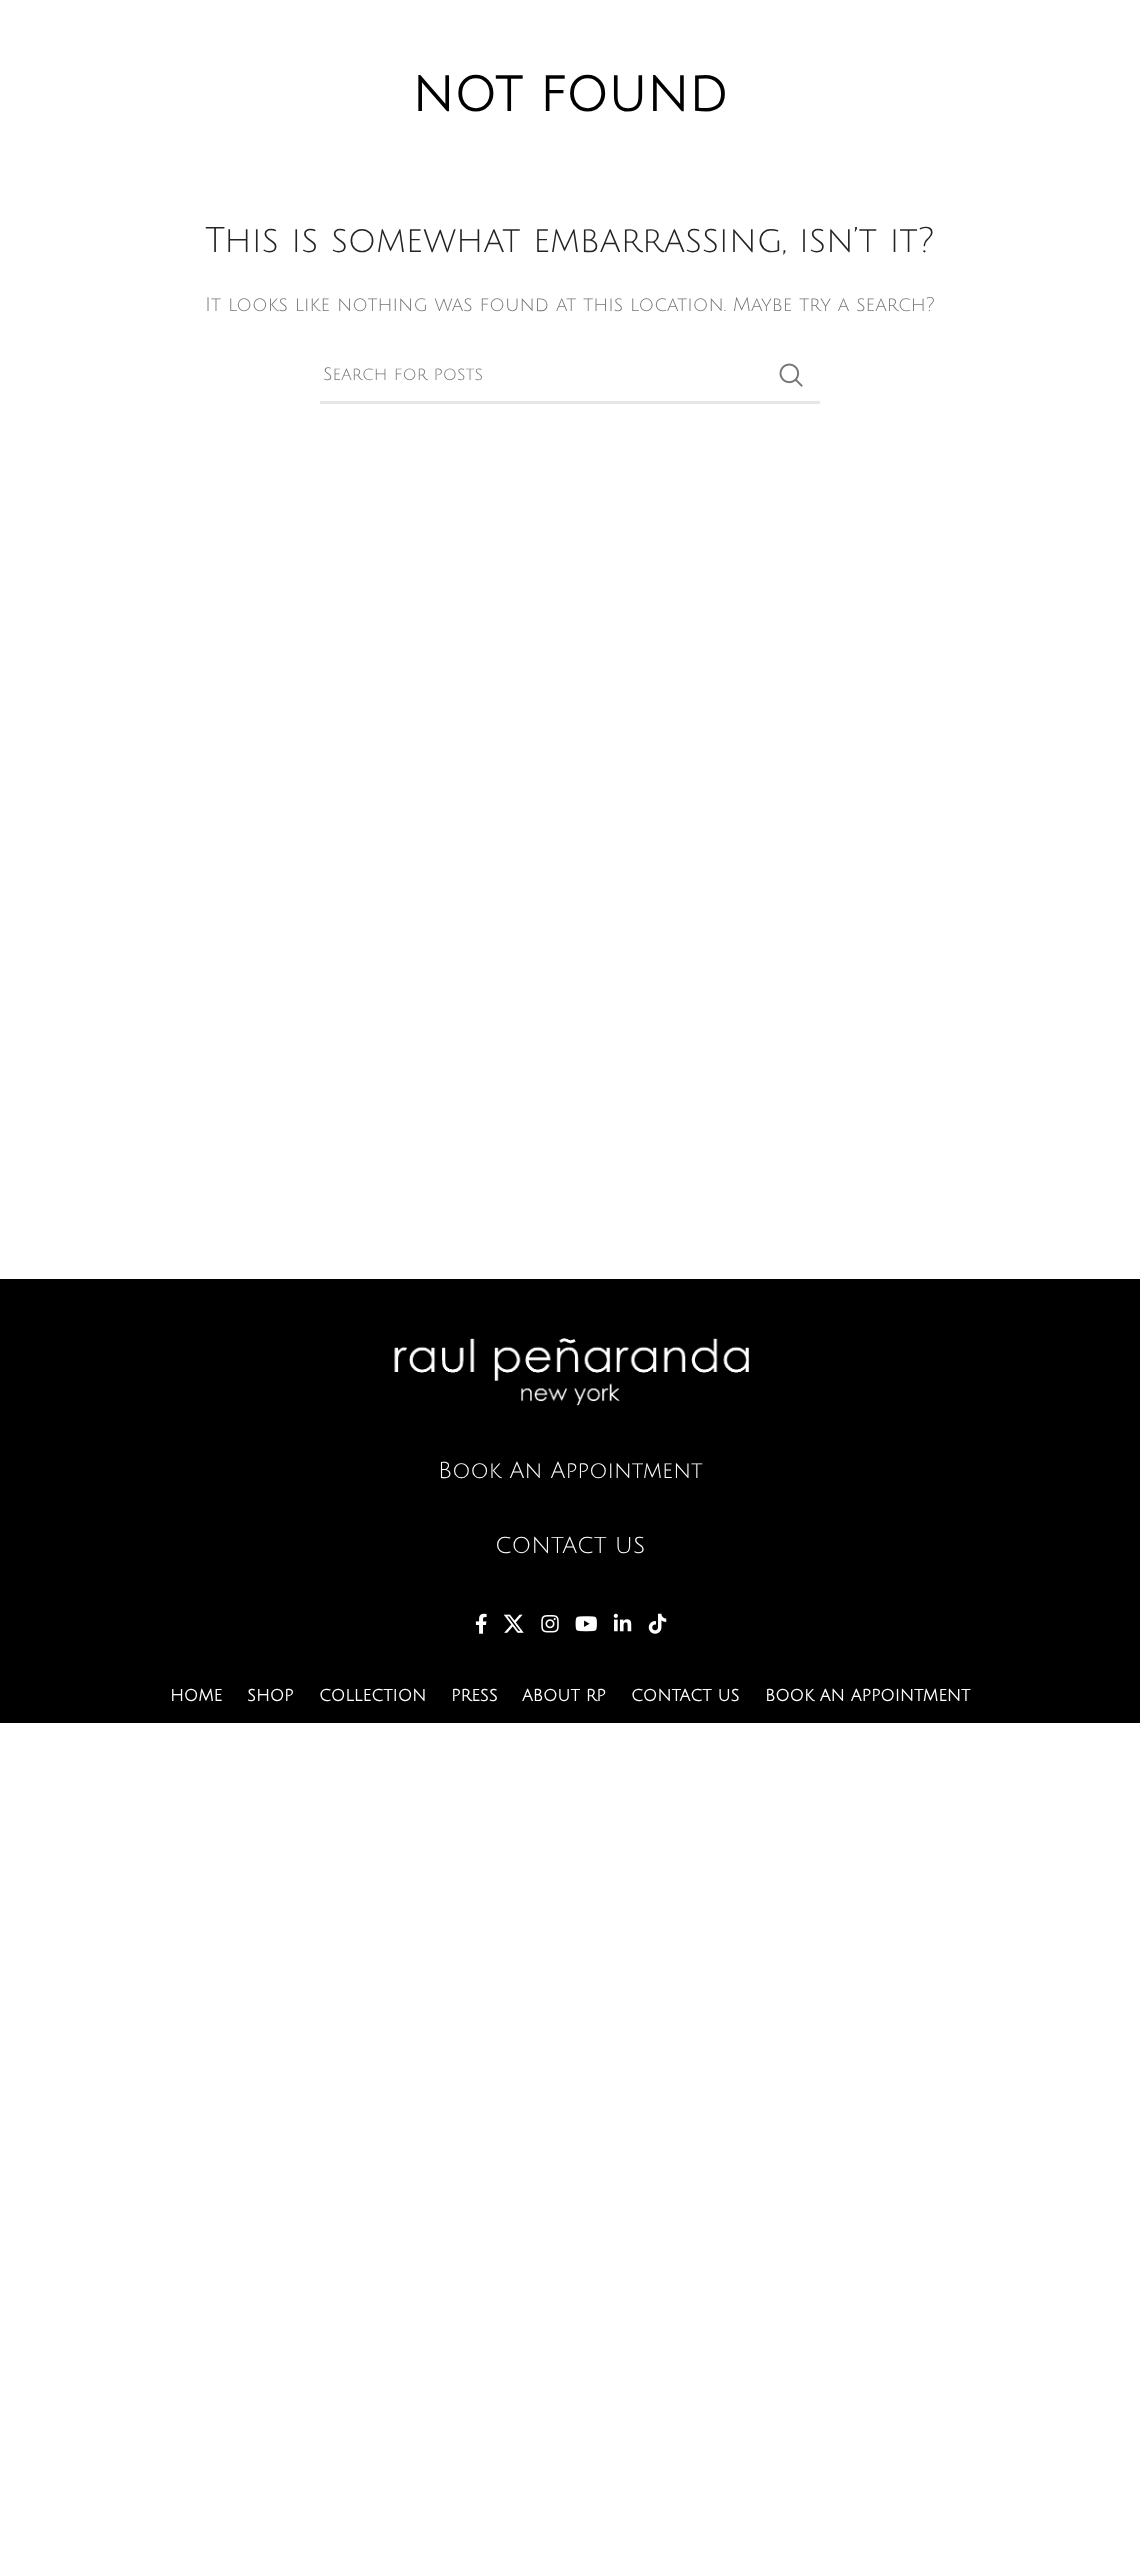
<svg xmlns="http://www.w3.org/2000/svg" width="1140" height="2557" viewBox="0 0 1140 2557">
  <style>
    .t1 { font: bold 48px Julius Sans One; fill: #000; }
    .t2 { font: 35px Julius Sans One; fill: #242424; }
    .t3 { font: 19.25px Julius Sans One; fill: #767676; }
    .t4 { font: 17.5px Julius Sans One; fill: #767676; }
    .t5 { font: 22.5px Julius Sans One; fill: #fff; }
    .t6 { font: bold 16.25px Julius Sans One; fill: #fff; }
  </style>
  <rect width="100%" height="100%" fill="#fff"/>
  <text x="412" y="111" class="t1">NOT FOUND</text>
  <text x="205" y="252" class="t2">This is somewhat embarrassing, isn’t it?</text>
  <text x="205" y="311" class="t3">It looks like nothing was found at this location. Maybe try a search?</text>
  <rect x="320" y="401" width="500" height="3" fill="#e6e6e6"/>
  <text x="323" y="380" class="t4">Search for posts</text>
  <image x="779" y="363" width="24" height="24" href="images/1.png"/>
  <rect x="0" y="1279" width="1140" height="444" fill="#000"/>
  <image x="394" y="1338" width="355" height="68" href="images/2.png"/>
  <text x="438" y="1478" class="t5">Book An Appointment</text>
  <text x="495" y="1553" class="t5">CONTACT US</text>
  <image x="475" y="1613" width="12" height="21" href="images/3.png"/>
  <image x="503" y="1614" width="21" height="19" href="images/4.png"/>
  <image x="541" y="1615" width="18" height="18" href="images/5.png"/>
  <image x="575" y="1616" width="22" height="16" href="images/6.png"/>
  <image x="613" y="1613" width="19" height="19" href="images/7.png"/>
  <image x="648" y="1613" width="19" height="21" href="images/8.png"/>
  <text x="170" y="1701" class="t6">HOME</text>
  <text x="247" y="1701" class="t6">SHOP</text>
  <text x="319" y="1701" class="t6">COLLECTION</text>
  <text x="451" y="1701" class="t6">PRESS</text>
  <text x="522" y="1701" class="t6">ABOUT RP</text>
  <text x="631" y="1701" class="t6">CONTACT US</text>
  <text x="765" y="1701" class="t6">BOOK AN APPOINTMENT</text>
</svg>
